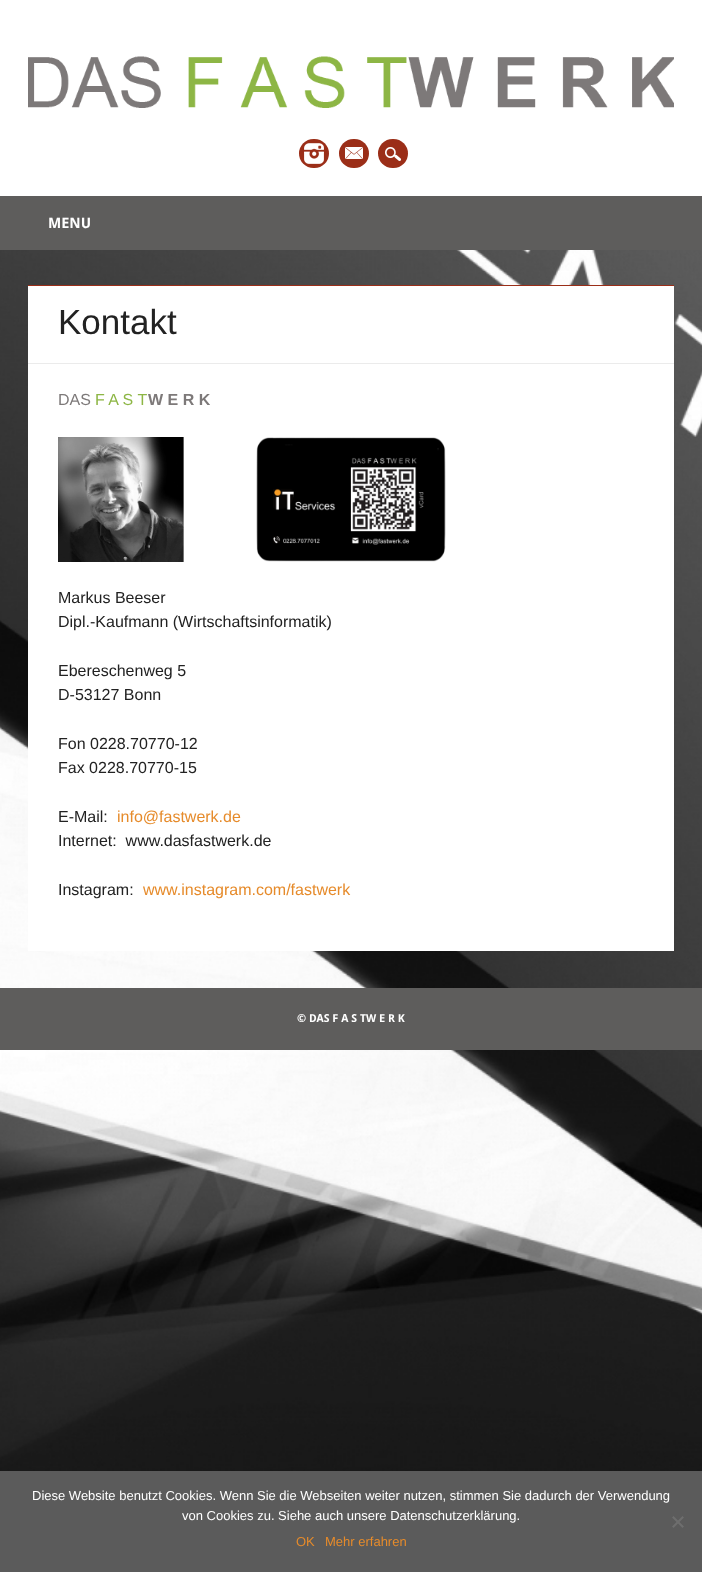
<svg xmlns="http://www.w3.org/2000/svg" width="702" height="1572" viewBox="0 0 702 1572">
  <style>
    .t1 { font: bold 14.5px Droid Sans; fill: #fff; }
    .t2 { font: 35px Liberation Sans; fill: #222; }
    .t3 { font: 16px Liberation Sans; fill: #7d7979; }
    .t4 { font: 16px Liberation Sans; fill: #8db645; }
    .t5 { font: bold 16px Liberation Sans; fill: #7d7979; }
    .t6 { font: 16px Liberation Sans; fill: #222; }
    .t7 { font: 16px Liberation Sans; fill: #e68b2b; }
    .t8 { font: bold 11px Droid Sans; fill: #fff; }
    .t9 { font: 13px Liberation Sans; fill: #fff; }
    .t10 { font: 13px Liberation Sans; fill: #e68b2b; }
  </style>
  <rect width="100%" height="100%" fill="#fff"/>
  <image x="0" y="250" width="702" height="1221" href="images/1.png"/>
  <image x="28" y="56" width="646" height="52" href="images/2.png"/>
  <rect x="299" y="139" width="30" height="29" rx="14.5" fill="#9b2e18"/>
  <image x="304" y="143" width="20" height="21" href="images/3.png"/>
  <rect x="339" y="139" width="30" height="29" rx="14.5" fill="#9b2e18"/>
  <image x="345" y="147" width="18" height="12" href="images/4.png"/>
  <rect x="378" y="139" width="30" height="29" rx="14.5" fill="#9b2e18"/>
  <image x="385" y="147" width="16" height="14" href="images/5.png"/>
  <rect x="0" y="196" width="702" height="54" fill="#5e5d5c"/>
  <text x="48" y="228" class="t1">MENU</text>
  <rect x="28" y="286" width="646" height="665" fill="#fff"/>
  <rect x="28" y="285" width="646" height="1" fill="#9b2e18"/>
  <text x="58" y="334" class="t2">Kontakt</text>
  <rect x="28" y="363" width="646" height="1" fill="#ebebeb"/>
  <text x="58" y="405" class="t3">DAS</text>
  <text x="95" y="405" class="t4">F A S T</text>
  <text x="148" y="405" class="t5">W E R K</text>
  <image x="58" y="437" width="388" height="125" href="images/6.png"/>
  <text x="58" y="603" class="t6">Markus Beeser</text>
  <text x="58" y="627" class="t6">Dipl.-Kaufmann (Wirtschaftsinformatik)</text>
  <text x="58" y="676" class="t6">Ebereschenweg 5</text>
  <text x="58" y="700" class="t6">D-53127 Bonn</text>
  <text x="58" y="749" class="t6">Fon 0228.70770-12</text>
  <text x="58" y="773" class="t6">Fax 0228.70770-15</text>
  <text x="58" y="822" class="t6">E-Mail:</text>
  <text x="117" y="822" class="t7">info@fastwerk.de</text>
  <text x="58" y="846" class="t6" xml:space="preserve">Internet:  www.dasfastwerk.de</text>
  <text x="58" y="895" class="t6">Instagram:</text>
  <text x="143" y="895" class="t7">www.instagram.com/fastwerk</text>
  <rect x="0" y="988" width="702" height="62" fill="#5e5d5c"/>
  <text x="297" y="1022" class="t8">© DAS F A S TW E R K</text>
  <rect x="0" y="1471" width="702" height="101" fill="#5b5b5b"/>
  <text x="32" y="1500" class="t9">Diese Website benutzt Cookies. Wenn Sie die Webseiten weiter nutzen, stimmen Sie dadurch der Verwendung</text>
  <text x="182" y="1520" class="t9">von Cookies zu. Siehe auch unsere Datenschutzerklärung.</text>
  <path d="M682.5 1516L684 1517.5L673.5 1528L672 1526.5Z" fill="#6e6e6e"/>
  <path d="M672 1517.5L673.5 1516L684 1526.5L682.5 1528Z" fill="#6e6e6e"/>
  <text x="296" y="1546" class="t10">OK</text>
  <text x="325" y="1546" class="t10">Mehr erfahren</text>
</svg>
